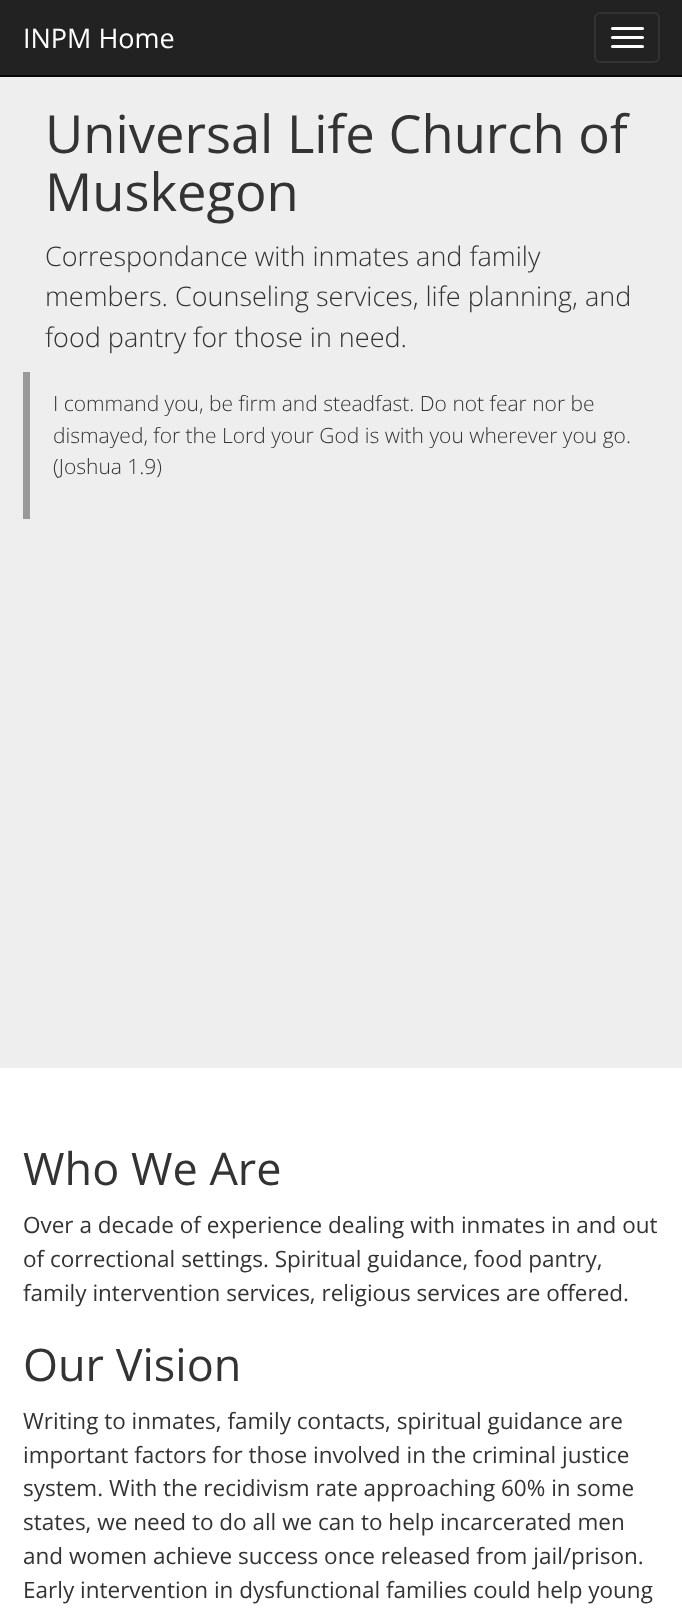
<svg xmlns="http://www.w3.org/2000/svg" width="682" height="1609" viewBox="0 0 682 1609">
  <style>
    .t1 { font: 27px Open Sans; fill: #fff; }
    .t2 { font: 52.5px Open Sans; fill: #333; }
    .t3 { font: 300 27px Open Sans; fill: #333; }
    .t4 { font: 300 21px Open Sans; fill: #333; }
    .t5 { font: 45px Open Sans; fill: #333; }
    .t6 { font: 22.5px Open Sans; fill: #333; }
  </style>
  <rect width="100%" height="100%" fill="#fff"/>
  <rect x="0" y="0" width="682" height="75" fill="#222"/>
  <rect x="0" y="75" width="682" height="2" fill="#080808"/>
  <text x="23" y="48" class="t1">INPM Home</text>
  <rect x="595" y="13" width="64" height="49" rx="5" fill="none" stroke="#333" stroke-width="2"/>
  <rect x="611" y="27" width="33" height="3" rx="1.5" fill="#fff"/>
  <rect x="611" y="36" width="33" height="3" rx="1.5" fill="#fff"/>
  <rect x="611" y="45" width="33" height="3" rx="1.5" fill="#fff"/>
  <rect x="0" y="77" width="682" height="991" fill="#eee"/>
  <text x="45" y="153" class="t2">Universal Life Church of</text>
  <text x="45" y="211" class="t2">Muskegon</text>
  <text x="45" y="266" class="t3">Correspondance with inmates and family</text>
  <text x="45" y="306" class="t3">members. Counseling services, life planning, and</text>
  <text x="45" y="347" class="t3">food pantry for those in need.</text>
  <rect x="23" y="372" width="7" height="147" fill="#999"/>
  <text x="53" y="411" class="t4">I command you, be firm and steadfast. Do not fear nor be</text>
  <text x="53" y="443" class="t4">dismayed, for the Lord your God is with you wherever you go.</text>
  <text x="53" y="474" class="t4">(Joshua 1.9)</text>
  <text x="23" y="1185" class="t5">Who We Are</text>
  <text x="23" y="1233" class="t6">Over a decade of experience dealing with inmates in and out</text>
  <text x="23" y="1267" class="t6">of correctional settings. Spiritual guidance, food pantry,</text>
  <text x="23" y="1301" class="t6">family intervention services, religious services are offered.</text>
  <text x="23" y="1381" class="t5">Our Vision</text>
  <text x="23" y="1429" class="t6">Writing to inmates, family contacts, spiritual guidance are</text>
  <text x="23" y="1463" class="t6">important factors for those involved in the criminal justice</text>
  <text x="23" y="1496" class="t6">system. With the recidivism rate approaching 60% in some</text>
  <text x="23" y="1530" class="t6">states, we need to do all we can to help incarcerated men</text>
  <text x="23" y="1564" class="t6">and women achieve success once released from jail/prison.</text>
  <text x="23" y="1598" class="t6">Early intervention in dysfunctional families could help young</text>
</svg>
